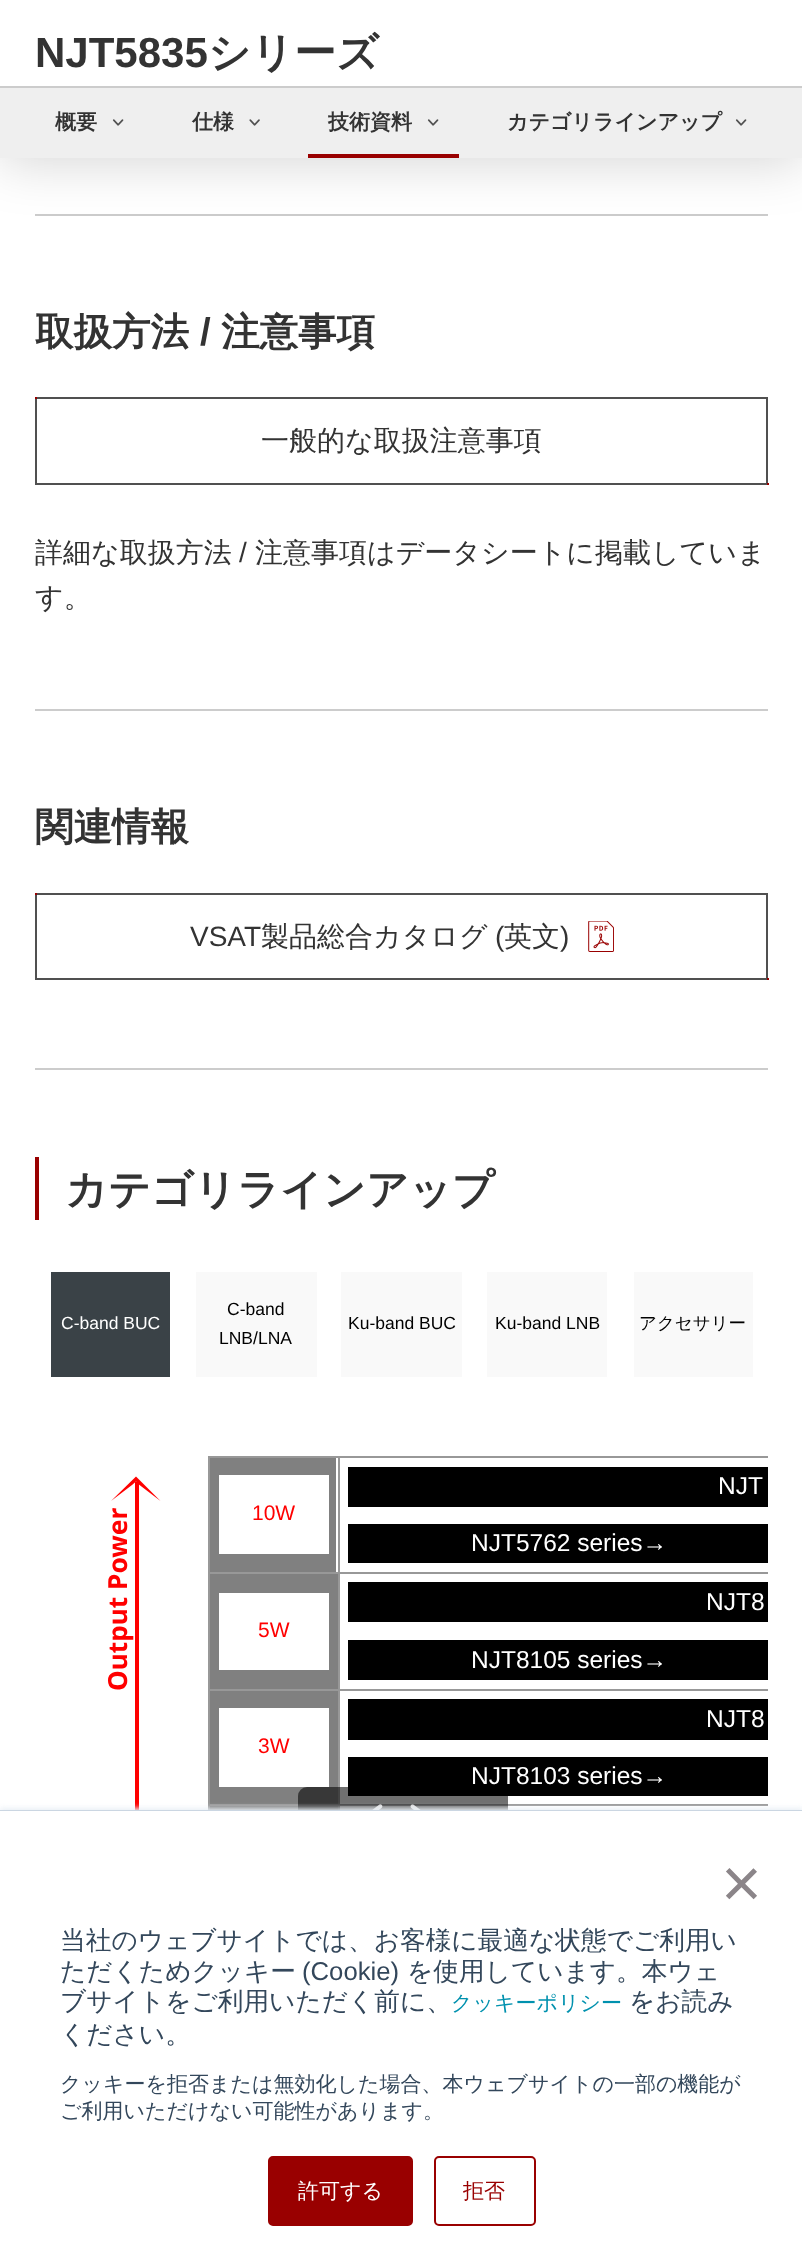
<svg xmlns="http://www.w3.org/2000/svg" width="802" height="2261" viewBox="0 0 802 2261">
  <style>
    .t1 { font: bold 42px Liberation Sans; fill: #333; }
    .t2 { font: bold 42px WenQuanYi Zen Hei; fill: #333; }
    .t3 { font: bold 21px WenQuanYi Zen Hei; fill: #333; }
    .t4 { font: bold 38.5px WenQuanYi Zen Hei; fill: #333; }
    .t5 { font: bold 38.5px Liberation Sans; fill: #333; }
    .t6 { font: 500 28px WenQuanYi Zen Hei; fill: #333; }
    .t7 { font: 28px Liberation Sans; fill: #333; }
    .t8 { font: 17.5px Liberation Sans; fill: #fff; }
    .t9 { font: 17.5px Liberation Sans; fill: #000; }
    .t10 { font: 500 17.5px WenQuanYi Zen Hei; fill: #000; }
    .t11 { font: 24.5px Liberation Sans; fill: #fff; }
    .t12 { font: bold 26.25px Noto Sans; fill: #f00; }
    .t13 { font: 21px Liberation Sans; fill: #f00; }
    .t14 { font: 70px Liberation Sans; fill: #8b8589; }
    .t15 { font: 500 25.7px WenQuanYi Zen Hei; fill: #33475b; }
    .t16 { font: 25.7px Liberation Sans; fill: #33475b; }
    .t17 { font: 500 21px WenQuanYi Zen Hei; fill: #0091ae; }
    .t18 { font: 500 21px WenQuanYi Zen Hei; fill: #33475b; }
    .t19 { font: 500 21px WenQuanYi Zen Hei; fill: #fff; }
    .t20 { font: 500 21px WenQuanYi Zen Hei; fill: #900; }
  </style>
  <rect width="100%" height="100%" fill="#fff"/>
  <rect x="35" y="214" width="733" height="2" fill="#ccc"/>
  <rect x="0" y="5" width="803" height="158" fill="#00000029" filter="blur(26px)"/>
  <rect x="0" y="0" width="802" height="86" fill="#fff"/>
  <text x="35" y="67" class="t1">NJT5835</text>
  <text x="208" y="67" class="t2">シリーズ</text>
  <rect x="0" y="88" width="802" height="70" fill="#efefef"/>
  <rect x="0" y="86" width="802" height="2" fill="#ccc"/>
  <text x="55" y="129" class="t3">概要</text>
  <image x="112" y="119" width="12" height="7" href="images/1.png"/>
  <text x="192" y="129" class="t3">仕様</text>
  <image x="249" y="119" width="11" height="7" href="images/2.png"/>
  <text x="328" y="129" class="t3">技術資料</text>
  <image x="427" y="119" width="12" height="7" href="images/1.png"/>
  <rect x="308" y="154" width="151" height="4" fill="#900"/>
  <text x="507" y="129" class="t3">カテゴリラインアップ</text>
  <image x="735" y="119" width="12" height="7" href="images/1.png"/>
  <text x="35" y="345" class="t4">取扱方法</text>
  <text x="200" y="345" class="t5">/</text>
  <text x="221" y="345" class="t4">注意事項</text>
  <rect x="36" y="398" width="731" height="86" fill="none" stroke="#505050" stroke-width="2"/>
  <rect x="35" y="397" width="2" height="2" fill="#900"/>
  <text x="261" y="450" class="t6">一般的な取扱注意事項</text>
  <rect x="767" y="483" width="2" height="2" fill="#900"/>
  <text x="35" y="562" class="t6">詳細な取扱方法</text>
  <text x="239" y="562" class="t7">/</text>
  <text x="255" y="562" class="t6">注意事項はデータシートに掲載していま</text>
  <text x="35" y="607" class="t6">す。</text>
  <rect x="35" y="709" width="733" height="2" fill="#ccc"/>
  <text x="35" y="840" class="t4">関連情報</text>
  <rect x="36" y="894" width="731" height="85" fill="none" stroke="#505050" stroke-width="2"/>
  <rect x="35" y="893" width="2" height="2" fill="#900"/>
  <text x="190" y="946" class="t7">VSAT</text>
  <text x="261" y="946" class="t6">製品総合カタログ</text>
  <text x="495" y="946" class="t7">(</text>
  <text x="504" y="946" class="t6">英文</text>
  <text x="560" y="946" class="t7">)</text>
  <image x="588" y="921" width="26" height="31" href="images/3.png"/>
  <rect x="767" y="978" width="2" height="2" fill="#900"/>
  <rect x="35" y="1068" width="733" height="2" fill="#ccc"/>
  <rect x="35" y="1157" width="4" height="63" fill="#900"/>
  <text x="65" y="1204" class="t2">カテゴリラインアップ</text>
  <rect x="51" y="1272" width="119" height="105" fill="#3a4247"/>
  <text x="61" y="1329" class="t8">C-band BUC</text>
  <rect x="196" y="1272" width="121" height="105" fill="#f9f9f9"/>
  <text x="227" y="1315" class="t9">C-band</text>
  <text x="219" y="1344" class="t9">LNB/LNA</text>
  <rect x="341" y="1272" width="121" height="105" fill="#f9f9f9"/>
  <text x="348" y="1329" class="t9">Ku-band BUC</text>
  <rect x="487" y="1272" width="120" height="105" fill="#f9f9f9"/>
  <text x="495" y="1329" class="t9">Ku-band LNB</text>
  <rect x="634" y="1272" width="119" height="105" fill="#f9f9f9"/>
  <text x="639" y="1329" class="t10">アクセサリー</text>
  <rect x="208" y="1456" width="560" height="2" fill="#989898"/>
  <rect x="348" y="1467" width="420" height="40" fill="#000"/>
  <text x="718" y="1494" class="t11">NJT</text>
  <rect x="338" y="1572" width="430" height="2" fill="#989898"/>
  <rect x="338" y="1689" width="430" height="2" fill="#989898"/>
  <rect x="338" y="1804" width="430" height="2" fill="#989898"/>
  <rect x="338" y="1804" width="2" height="6" fill="#989898"/>
  <rect x="338" y="1689" width="2" height="117" fill="#989898"/>
  <rect x="338" y="1572" width="2" height="119" fill="#989898"/>
  <rect x="338" y="1456" width="2" height="117" fill="#989898"/>
  <rect x="208" y="1572" width="132" height="2" fill="#989898"/>
  <rect x="208" y="1689" width="132" height="2" fill="#989898"/>
  <rect x="208" y="1804" width="132" height="2" fill="#989898"/>
  <rect x="208" y="1456" width="2" height="354" fill="#989898"/>
  <rect x="135" y="1482" width="4" height="328" fill="#f00"/>
  <path d="M111 1501L136 1476.5V1481.5L132 1485ZM136 1476.5L160.5 1501L139.5 1485L136 1481.5Z" fill="#f00"/>
  <text x="127" y="1691" transform="rotate(-90 127 1691)" class="t12">Output Power</text>
  <rect x="210" y="1458" width="126" height="114" fill="#808080"/>
  <rect x="219" y="1475" width="110" height="79" fill="#fff"/>
  <text x="252" y="1520" class="t13">10W</text>
  <rect x="348" y="1524" width="420" height="39" fill="#000"/>
  <text x="471" y="1551" class="t11">NJT5762 series→</text>
  <rect x="348" y="1582" width="420" height="40" fill="#000"/>
  <text x="706" y="1610" class="t11">NJT8</text>
  <rect x="210" y="1574" width="128" height="115" fill="#808080"/>
  <rect x="219" y="1593" width="110" height="77" fill="#fff"/>
  <text x="258" y="1637" class="t13">5W</text>
  <rect x="348" y="1640" width="420" height="40" fill="#000"/>
  <text x="471" y="1668" class="t11">NJT8105 series→</text>
  <rect x="348" y="1699" width="420" height="41" fill="#000"/>
  <text x="706" y="1727" class="t11">NJT8</text>
  <rect x="210" y="1691" width="128" height="113" fill="#808080"/>
  <rect x="219" y="1708" width="110" height="79" fill="#fff"/>
  <text x="258" y="1753" class="t13">3W</text>
  <rect x="348" y="1757" width="420" height="39" fill="#000"/>
  <text x="471" y="1784" class="t11">NJT8103 series→</text>
  <rect x="210" y="1806" width="128" height="4" fill="#808080"/>
  <rect x="298" y="1787" width="210" height="140" rx="9" fill="#0000008f"/>
  <image x="372" y="1804" width="49" height="6" href="images/4.png"/>
  <rect x="0" y="1808" width="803" height="451" fill="#eaf0f6" filter="blur(2.5px)"/>
  <rect x="0" y="1810" width="802" height="1" fill="#cbd6e2"/>
  <rect x="0" y="1811" width="802" height="450" fill="#fff"/>
  <text x="721" y="1907" class="t14">×</text>
  <text x="60" y="1949" class="t15">当社のウェブサイトでは、お客様に最適な状態でご利用い</text>
  <text x="60" y="1980" class="t15">ただくためクッキー</text>
  <text x="302" y="1980" class="t16">(Cookie)</text>
  <text x="407" y="1980" class="t15">を使用しています。本ウェ</text>
  <text x="60" y="2010" class="t15">ブサイトをご利用いただく前に、</text>
  <text x="451" y="2010" class="t17">クッキーポリシー</text>
  <text x="629" y="2010" class="t15">をお読み</text>
  <text x="60" y="2043" class="t15">ください。</text>
  <text x="60" y="2091" class="t18">クッキーを拒否または無効化した場合、本ウェブサイトの一部の機能が</text>
  <text x="60" y="2118" class="t18">ご利用いただけない可能性があります。</text>
  <rect x="269" y="2157" width="143" height="68" rx="4" fill="#900" stroke="#900" stroke-width="2"/>
  <text x="298" y="2198" class="t19">許可する</text>
  <rect x="435" y="2157" width="100" height="68" rx="4" fill="none" stroke="#900" stroke-width="2"/>
  <text x="463" y="2198" class="t20">拒否</text>
</svg>
